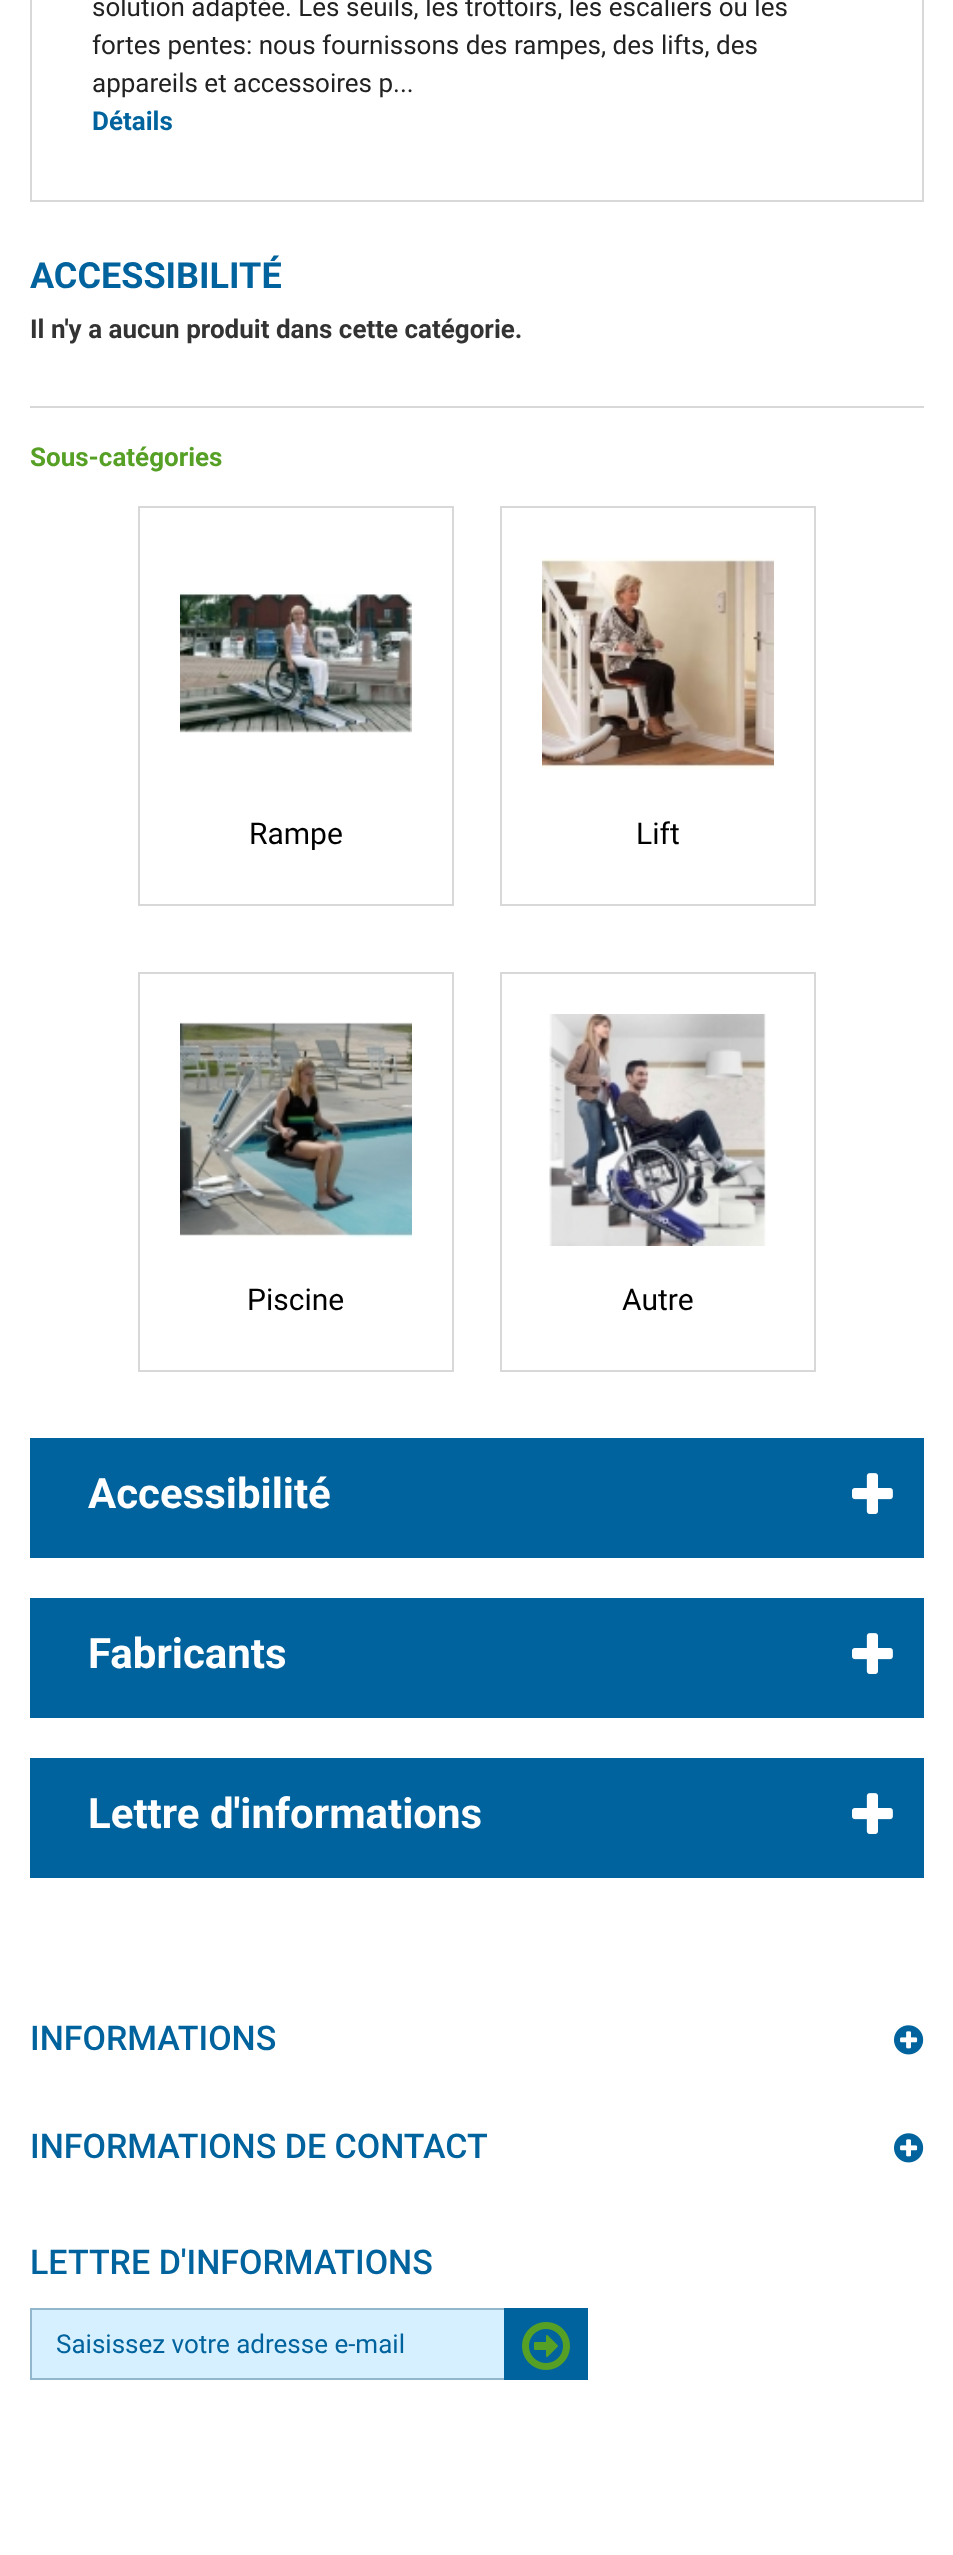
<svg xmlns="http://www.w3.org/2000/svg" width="953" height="2555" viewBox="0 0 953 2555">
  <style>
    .t1 { font: 26px Roboto; fill: #222; }
    .t2 { font: bold 26px Roboto; fill: #00639d; }
    .t3 { font: bold 36px Roboto; fill: #00639d; }
    .t4 { font: bold 26px Roboto; fill: #333; }
    .t5 { font: bold 26px Roboto; fill: #56a026; }
    .t6 { font: 30px Roboto; fill: #000; }
    .t7 { font: bold 42px Roboto; fill: #fff; }
    .t8 { font: 500 34px Roboto; fill: #00639d; }
    .t9 { font: 26px Roboto; fill: #00639d; }
  </style>
  <rect width="100%" height="100%" fill="#fff"/>
  <rect x="31" y="-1" width="892" height="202" fill="none" stroke="#d8d8d8" stroke-width="2"/>
  <text x="92" y="16" class="t1">solution adaptée. Les seuils, les trottoirs, les escaliers ou les</text>
  <text x="92" y="54" class="t1">fortes pentes: nous fournissons des rampes, des lifts, des</text>
  <text x="92" y="92" class="t1">appareils et accessoires p...</text>
  <text x="92" y="130" class="t2">Détails</text>
  <text x="30" y="288" class="t3">ACCESSIBILITÉ</text>
  <text x="30" y="338" class="t4">Il n'y a aucun produit dans cette catégorie.</text>
  <rect x="30" y="406" width="894" height="2" fill="#d8d8d8"/>
  <text x="30" y="466" class="t5">Sous-catégories</text>
  <rect x="139" y="507" width="314" height="398" fill="none" stroke="#d8d8d8" stroke-width="2"/>
  <image x="180" y="592" width="232" height="141" href="images/1.png"/>
  <text x="249" y="844" class="t6">Rampe</text>
  <rect x="501" y="507" width="314" height="398" fill="none" stroke="#d8d8d8" stroke-width="2"/>
  <image x="542" y="558" width="232" height="211" href="images/2.png"/>
  <text x="636" y="844" class="t6">Lift</text>
  <rect x="139" y="973" width="314" height="398" fill="none" stroke="#d8d8d8" stroke-width="2"/>
  <image x="180" y="1022" width="232" height="216" href="images/3.png"/>
  <text x="247" y="1310" class="t6">Piscine</text>
  <rect x="501" y="973" width="314" height="398" fill="none" stroke="#d8d8d8" stroke-width="2"/>
  <image x="549" y="1014" width="218" height="232" href="images/4.png"/>
  <text x="622" y="1310" class="t6">Autre</text>
  <rect x="30" y="1438" width="894" height="120" fill="#00639d"/>
  <text x="88" y="1508" class="t7">Accessibilité</text>
  <image x="852" y="1473" width="41" height="41" href="images/5.png"/>
  <rect x="30" y="1598" width="894" height="120" fill="#00639d"/>
  <text x="88" y="1668" class="t7">Fabricants</text>
  <image x="852" y="1633" width="41" height="41" href="images/5.png"/>
  <rect x="30" y="1758" width="894" height="120" fill="#00639d"/>
  <text x="88" y="1828" class="t7">Lettre d'informations</text>
  <image x="852" y="1793" width="41" height="41" href="images/5.png"/>
  <text x="30" y="2050" class="t8">INFORMATIONS</text>
  <image x="894" y="2025" width="30" height="30" href="images/6.png"/>
  <text x="30" y="2158" class="t8">INFORMATIONS DE CONTACT</text>
  <image x="894" y="2133" width="30" height="30" href="images/6.png"/>
  <text x="30" y="2274" class="t8">LETTRE D'INFORMATIONS</text>
  <rect x="32" y="2310" width="472" height="68" fill="#d6f0ff"/>
  <rect x="31" y="2309" width="556" height="70" fill="none" stroke="#92b7cd" stroke-width="2"/>
  <text x="56" y="2353" class="t9">Saisissez votre adresse e-mail</text>
  <rect x="504" y="2308" width="84" height="72" fill="#00639d"/>
  <image x="522" y="2322" width="48" height="48" href="images/7.png"/>
</svg>
